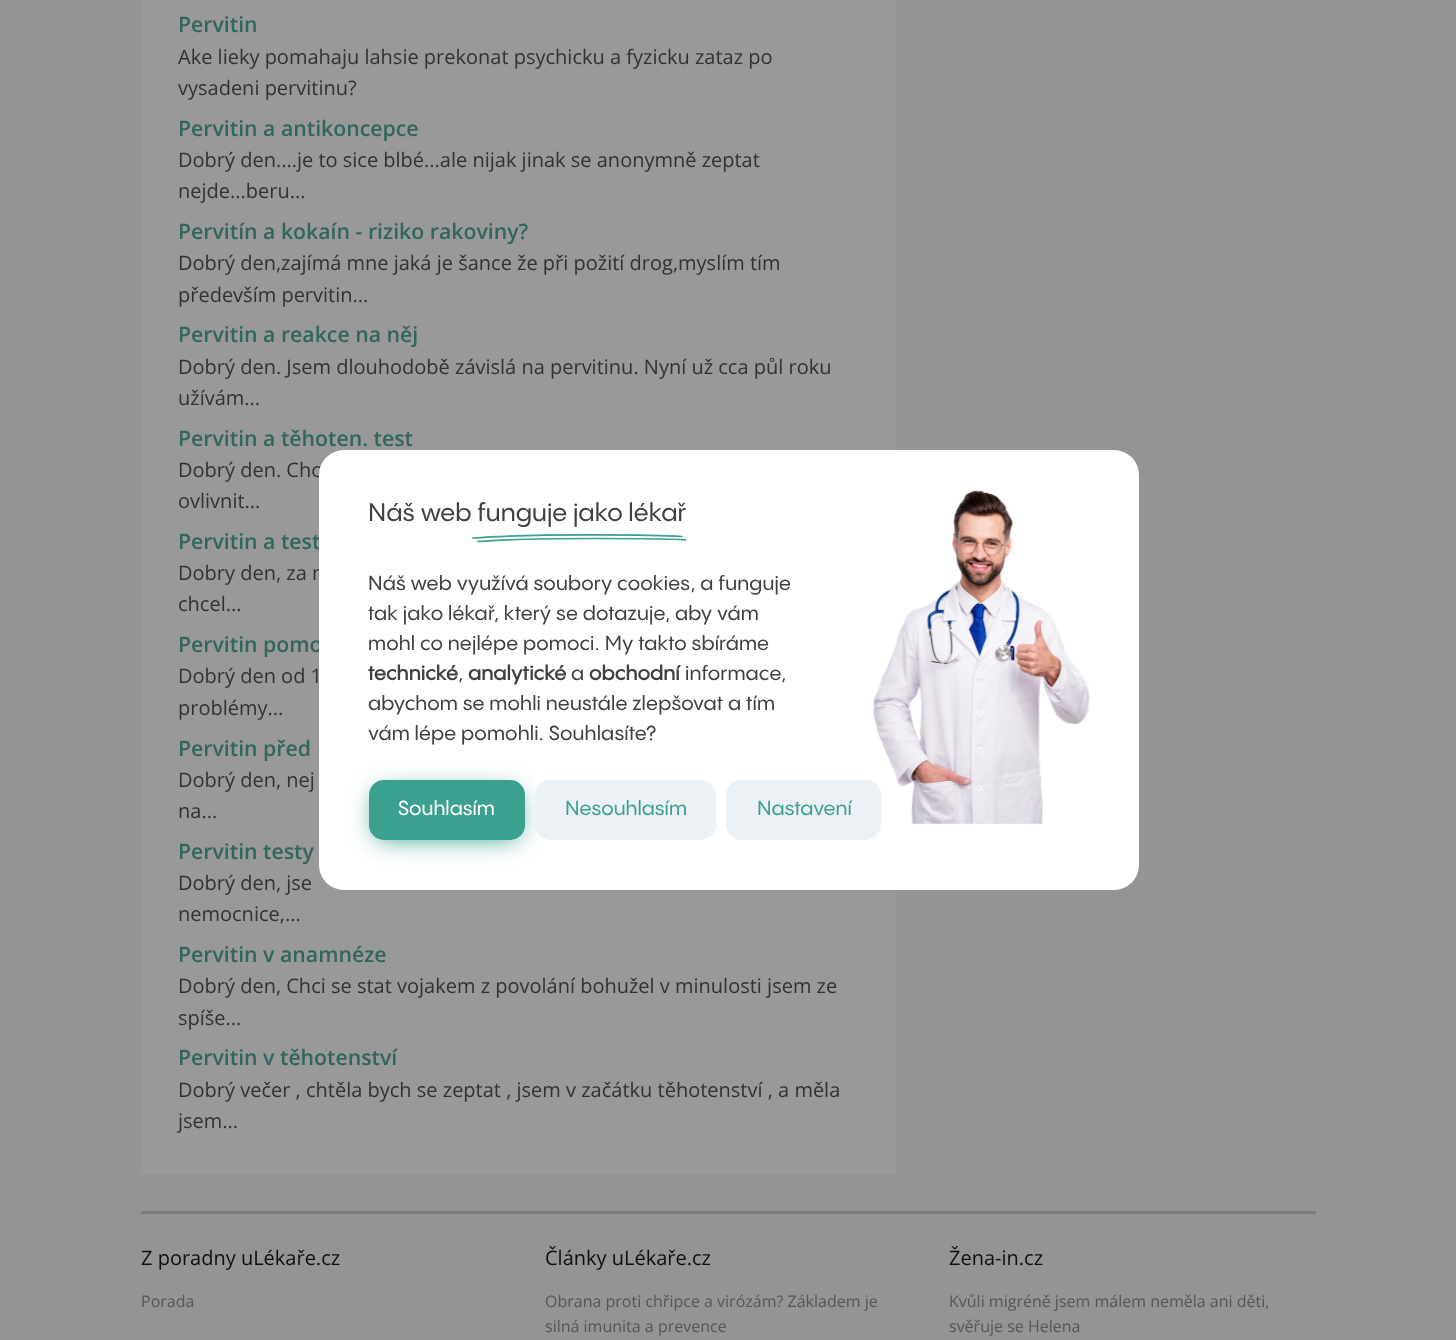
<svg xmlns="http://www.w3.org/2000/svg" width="1456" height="1340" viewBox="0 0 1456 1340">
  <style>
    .t1 { font: 600 21.25px Open Sans; fill: #30665d; }
    .t2 { font: 20px Open Sans; fill: #323232; }
    .t3 { font: 500 25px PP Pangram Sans; fill: #404040; }
    .t4 { font: 500 20px PP Pangram Sans; letter-spacing: 0.15px; fill: #404040; }
    .t5 { font: bold 20px PP Pangram Sans; letter-spacing: 0.15px; fill: #404040; }
    .t6 { font: 500 20px PP Pangram Sans; fill: #fff; }
    .t7 { font: 500 20px PP Pangram Sans; fill: #3ca091; }
    .t8 { font: 20px Open Sans; fill: #0f0f0f; }
    .t9 { font: 16px Open Sans; fill: #565656; }
  </style>
  <defs>
    <clipPath id="clip1"><rect x="471" y="526" width="215" height="24"/></clipPath>
  </defs>
  <rect width="100%" height="100%" fill="#929496"/>
  <rect x="141" y="0" width="755" height="1174" fill="#999"/>
  <text x="178" y="32" class="t1">Pervitin</text>
  <text x="178" y="64" class="t2">Ake lieky pomahaju lahsie prekonat psychicku a fyzicku zataz po</text>
  <text x="178" y="95" class="t2">vysadeni pervitinu?</text>
  <text x="178" y="136" class="t1">Pervitin a antikoncepce</text>
  <text x="178" y="167" class="t2">Dobrý den....je to sice blbé...ale nijak jinak se anonymně zeptat</text>
  <text x="178" y="198" class="t2">nejde...beru...</text>
  <text x="178" y="239" class="t1">Pervitín a kokaín - riziko rakoviny?</text>
  <text x="178" y="270" class="t2">Dobrý den,zajímá mne jaká je šance že při požití drog,myslím tím</text>
  <text x="178" y="302" class="t2">především pervitin...</text>
  <text x="178" y="342" class="t1">Pervitin a reakce na něj</text>
  <text x="178" y="374" class="t2">Dobrý den. Jsem dlouhodobě závislá na pervitinu. Nyní už cca půl roku</text>
  <text x="178" y="405" class="t2">užívám...</text>
  <text x="178" y="446" class="t1">Pervitin a těhoten. test</text>
  <text x="178" y="477" class="t2">Dobrý den. Chc</text>
  <text x="178" y="508" class="t2">ovlivnit...</text>
  <text x="178" y="549" class="t1">Pervitin a test</text>
  <text x="178" y="580" class="t2">Dobry den, za n</text>
  <text x="178" y="611" class="t2">chcel...</text>
  <text x="178" y="652" class="t1">Pervitin pomo</text>
  <text x="178" y="683" class="t2">Dobrý den od 1</text>
  <text x="178" y="715" class="t2">problémy...</text>
  <text x="178" y="756" class="t1">Pervitin před</text>
  <text x="178" y="787" class="t2">Dobrý den, nej</text>
  <text x="178" y="818" class="t2">na...</text>
  <text x="178" y="859" class="t1">Pervitin testy</text>
  <text x="178" y="890" class="t2">Dobrý den, jse</text>
  <text x="178" y="921" class="t2">nemocnice,...</text>
  <text x="178" y="962" class="t1">Pervitin v anamnéze</text>
  <text x="178" y="993" class="t2">Dobrý den, Chci se stat vojakem z povolání bohužel v minulosti jsem ze</text>
  <text x="178" y="1025" class="t2">spíše...</text>
  <text x="178" y="1065" class="t1">Pervitin v těhotenství</text>
  <text x="178" y="1097" class="t2">Dobrý večer , chtěla bych se zeptat , jsem v začátku těhotenství , a měla</text>
  <text x="178" y="1128" class="t2">jsem...</text>
  <rect x="319" y="450" width="820" height="440" rx="25" fill="#fff"/>
  <text x="368" y="521" class="t3">Náš web funguje jako lékař</text>
  <path d="M472.5 538C532.5 533.5 653.5 534.5 682 536.5" fill="none" stroke="#3ca091" stroke-width="1.7" stroke-linecap="round" stroke-linejoin="round"/>
  <g clip-path="url(#clip1)">
    <path d="M478 541.5C538 537 659 538.5 687 540" fill="none" stroke="#3ca091" stroke-width="1.7" stroke-linecap="round" stroke-linejoin="round"/>
  </g>
  <text x="368" y="590" class="t4">Náš web využívá soubory cookies, a funguje</text>
  <text x="368" y="620" class="t4">tak jako lékař, který se dotazuje, aby vám</text>
  <text x="368" y="650" class="t4">mohl co nejlépe pomoci. My takto sbíráme</text>
  <text x="368" y="680" class="t5">technické</text>
  <text x="458" y="680" class="t4">,</text>
  <text x="468" y="680" class="t5">analytické</text>
  <text x="571" y="680" class="t4">a</text>
  <text x="589" y="680" class="t5">obchodní</text>
  <text x="685" y="680" class="t4">informace,</text>
  <text x="368" y="710" class="t4">abychom se mohli neustále zlepšovat a tím</text>
  <text x="368" y="740" class="t4">vám lépe pomohli. Souhlasíte?</text>
  <rect x="375" y="791" width="144" height="48" rx="9" fill="#3ca091" filter="blur(12.5px)"/>
  <rect x="369" y="780" width="156" height="60" rx="15" fill="#3ca091"/>
  <text x="398" y="815" class="t6">Souhlasím</text>
  <rect x="535" y="780" width="181" height="60" rx="15" fill="#ecf1f6"/>
  <text x="565" y="815" class="t7">Nesouhlasím</text>
  <rect x="726" y="780" width="155" height="60" rx="15" fill="#ecf1f6"/>
  <text x="757" y="815" class="t7">Nastavení</text>
  <image x="873" y="490" width="217" height="334" href="images/1.png"/>
  <rect x="141" y="1211" width="1175" height="3" fill="#7d7d7d"/>
  <text x="141" y="1265" class="t8">Z poradny uLékaře.cz</text>
  <text x="141" y="1307" class="t9">Porada</text>
  <text x="545" y="1265" class="t8">Články uLékaře.cz</text>
  <text x="545" y="1307" class="t9">Obrana proti chřipce a virózám? Základem je</text>
  <text x="545" y="1332" class="t9">silná imunita a prevence</text>
  <text x="949" y="1265" class="t8">Žena-in.cz</text>
  <text x="949" y="1307" class="t9">Kvůli migréně jsem málem neměla ani děti,</text>
  <text x="949" y="1332" class="t9">svěřuje se Helena</text>
</svg>
